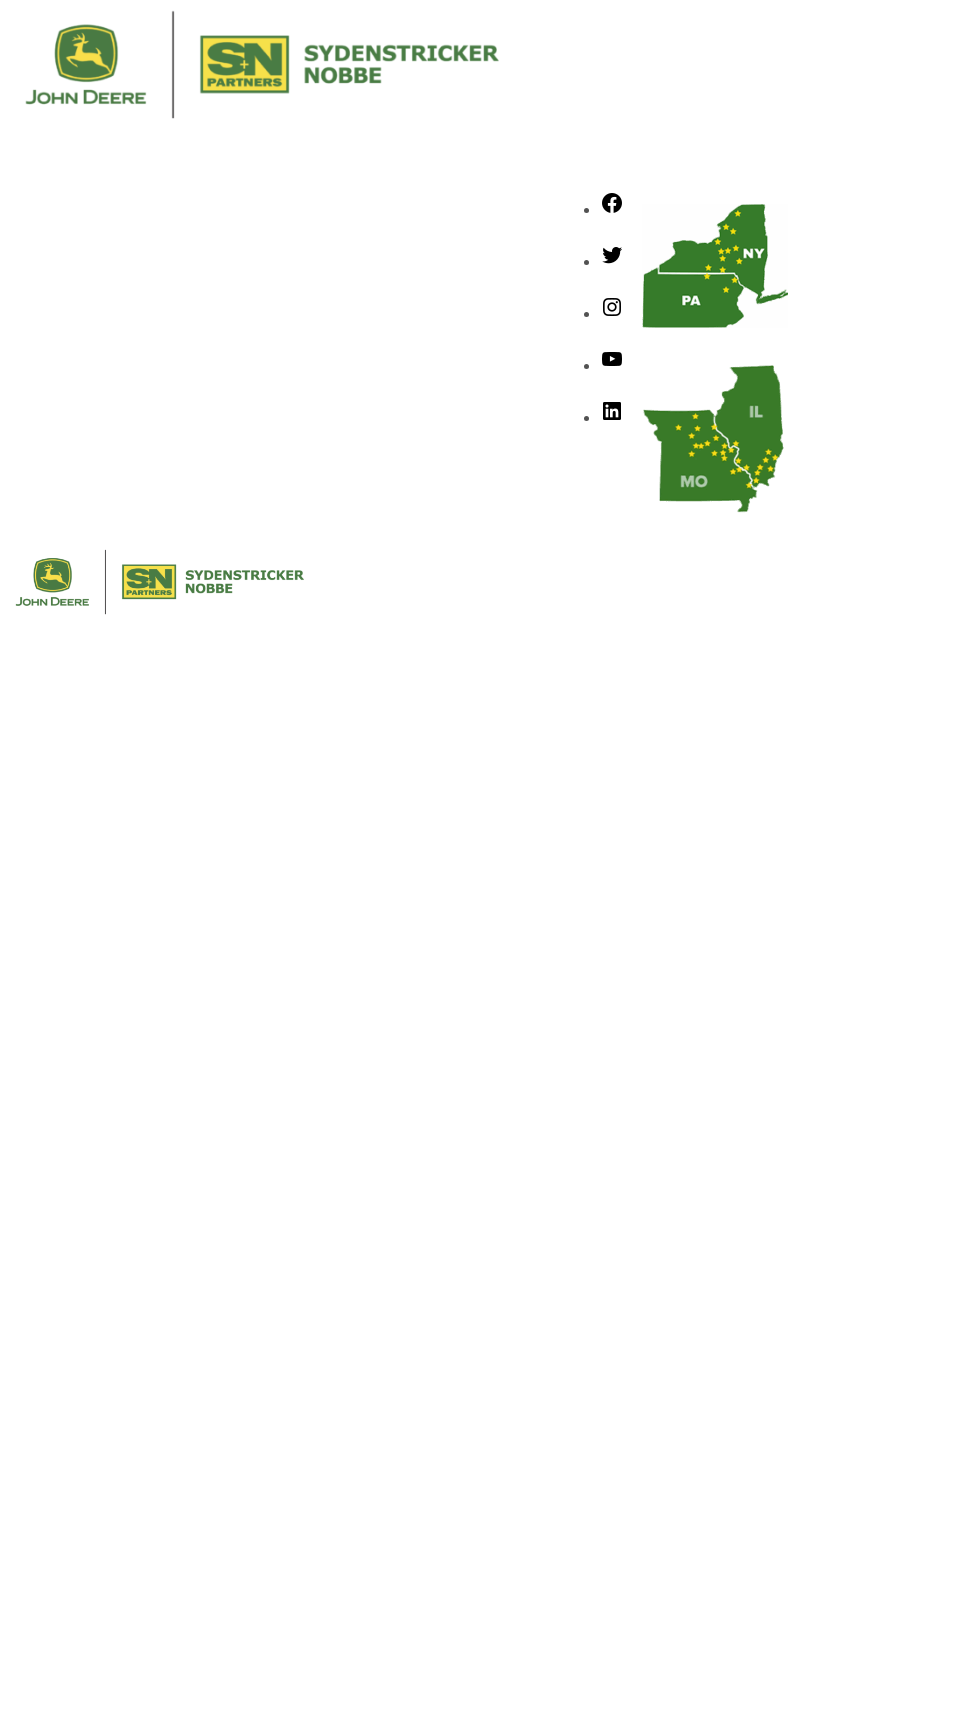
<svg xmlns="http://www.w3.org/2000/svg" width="956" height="1729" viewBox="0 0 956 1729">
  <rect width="100%" height="100%" fill="#fff"/>
  <image x="25" y="10" width="474" height="109" href="images/1.png"/>
  <circle cx="586.5" cy="210.5" r="2.5" fill="#525252"/>
  <image x="602" y="193" width="20" height="20" href="images/2.png"/>
  <circle cx="586.5" cy="262.5" r="2.5" fill="#525252"/>
  <image x="602" y="247" width="20" height="17" href="images/3.png"/>
  <circle cx="586.5" cy="314.5" r="2.5" fill="#525252"/>
  <image x="603" y="298" width="18" height="18" href="images/4.png"/>
  <image x="602" y="352" width="20" height="14" href="images/5.png"/>
  <circle cx="586.5" cy="366.5" r="2.5" fill="#525252"/>
  <circle cx="586.5" cy="418.5" r="2.5" fill="#525252"/>
  <image x="603" y="402" width="18" height="18" href="images/6.png"/>
  <image x="642" y="204" width="146" height="124" href="images/7.png"/>
  <image x="643" y="365" width="141" height="148" href="images/8.png"/>
  <image x="15" y="549" width="289" height="66" href="images/9.png"/>
</svg>
